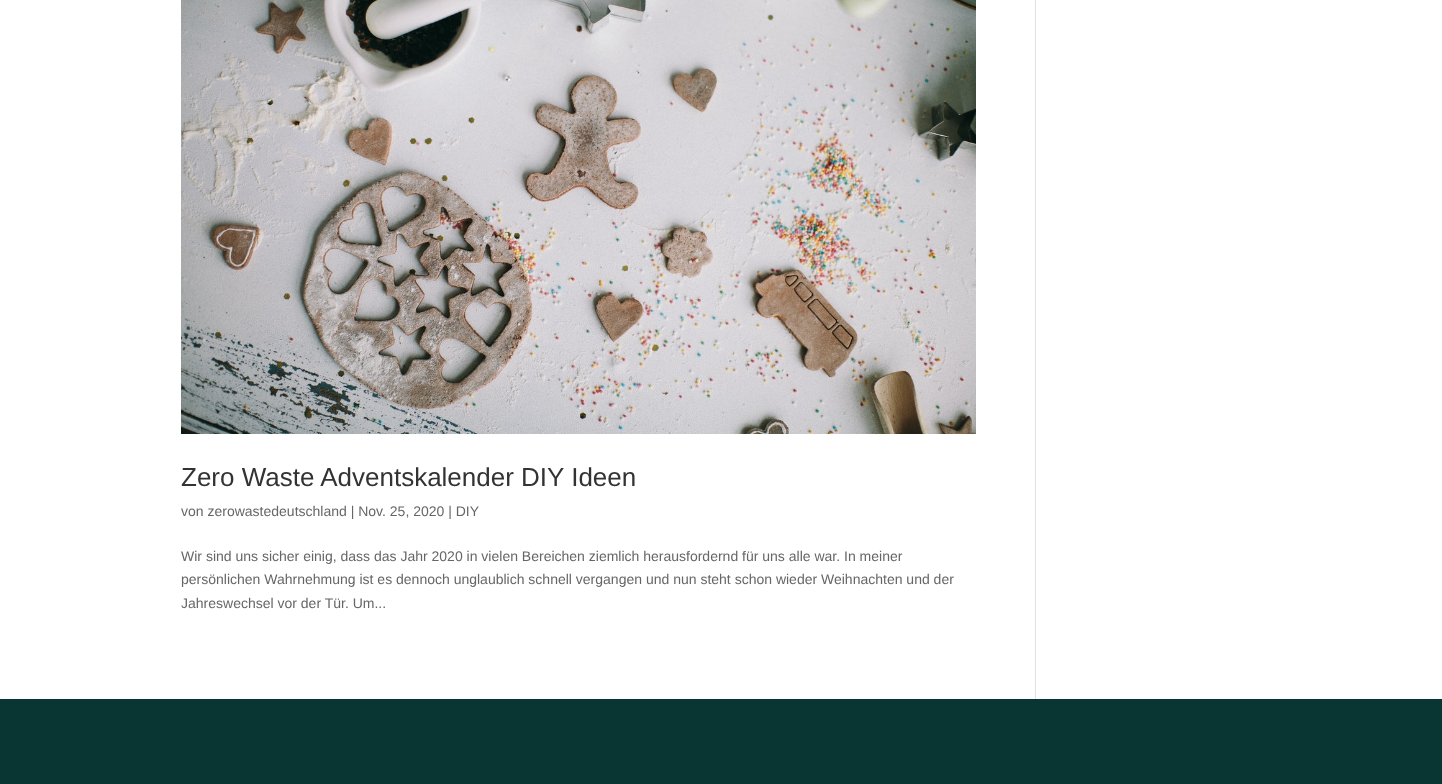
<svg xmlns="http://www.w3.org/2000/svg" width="1442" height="784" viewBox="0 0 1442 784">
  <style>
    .t1 { font: 26px Liberation Sans; fill: #333; }
    .t2 { font: 14px Liberation Sans; fill: #666; }
  </style>
  <rect width="100%" height="100%" fill="#fff"/>
  <image x="181" y="0" width="795" height="434" href="images/1.png"/>
  <text x="181" y="486" class="t1">Zero Waste Adventskalender DIY Ideen</text>
  <text x="181" y="516" class="t2">von zerowastedeutschland | Nov. 25, 2020 | DIY</text>
  <text x="181" y="561" class="t2">Wir sind uns sicher einig, dass das Jahr 2020 in vielen Bereichen ziemlich herausfordernd für uns alle war. In meiner</text>
  <text x="181" y="584" class="t2">persönlichen Wahrnehmung ist es dennoch unglaublich schnell vergangen und nun steht schon wieder Weihnachten und der</text>
  <text x="181" y="608" class="t2">Jahreswechsel vor der Tür. Um...</text>
  <rect x="1035" y="0" width="1" height="699" fill="#e2e2e2"/>
  <rect x="0" y="699" width="1442" height="85" fill="#093532"/>
</svg>
